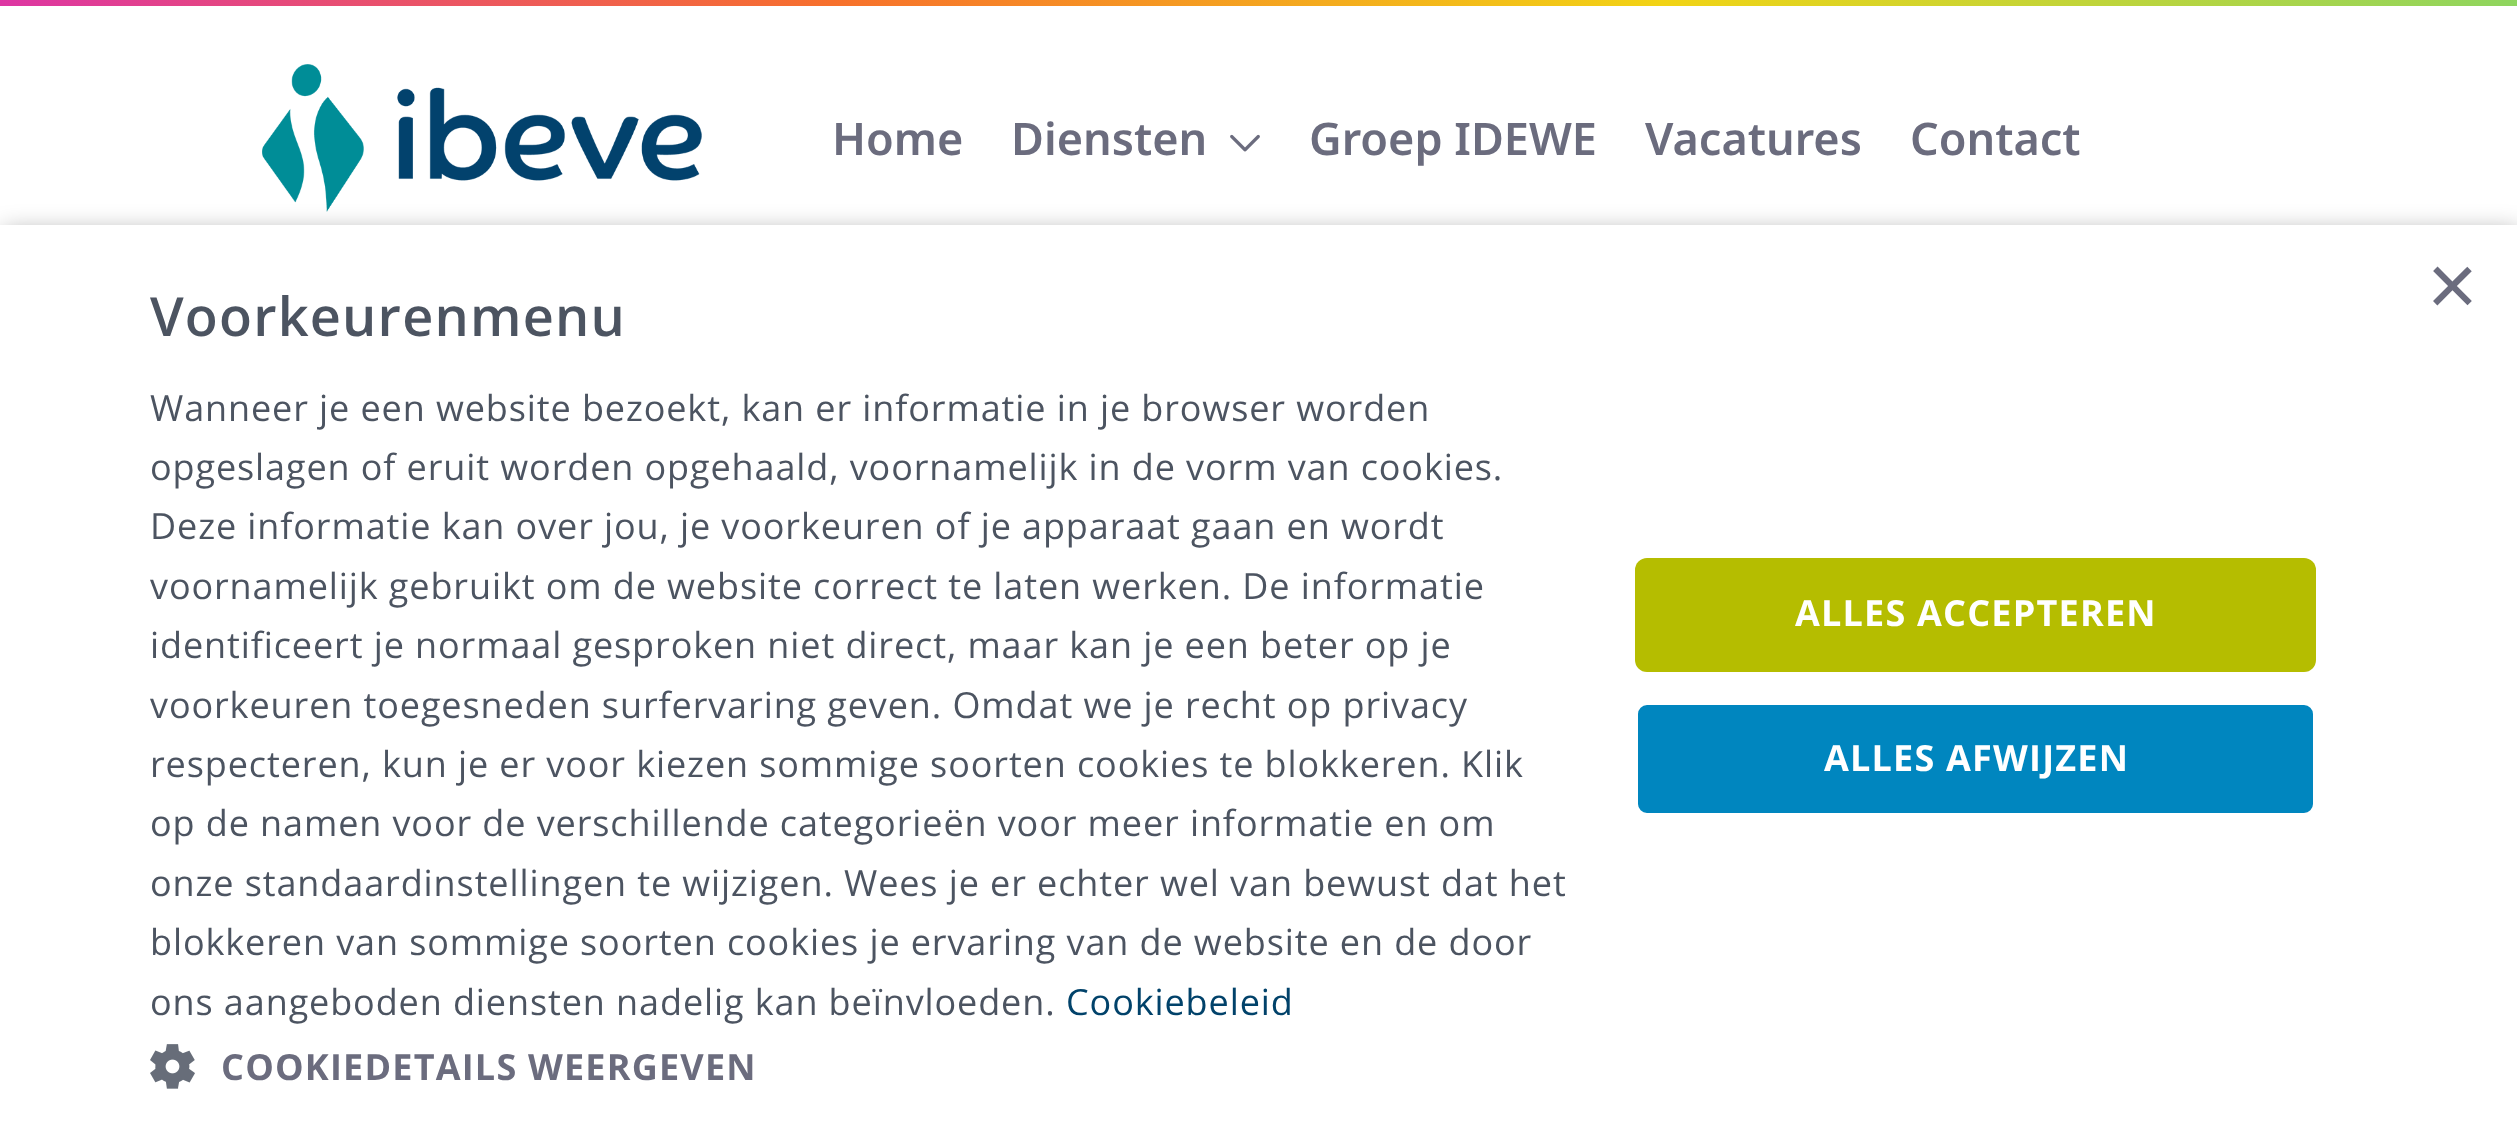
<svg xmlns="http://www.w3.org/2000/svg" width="2517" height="1147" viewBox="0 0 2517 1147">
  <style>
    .t1 { font: 600 45px Noto Sans; fill: #6b6c7e; }
    .t2 { font: 87px Liberation Sans; fill: #6b6c7e; }
    .t3 { font: 600 54px Open Sans; letter-spacing: 1.2px; fill: #4c5461; }
    .t4 { font: 36px Open Sans; letter-spacing: 0.9px; fill: #4c5461; }
    .t5 { font: 36px Open Sans; letter-spacing: 0.9px; fill: #01426a; }
    .t6 { font: bold 36px Open Sans; letter-spacing: 1.2px; fill: #6b6c7e; }
    .t7 { font: bold 36px Open Sans; letter-spacing: 1.2px; fill: #fff; }
  </style>
  <defs>
    <linearGradient id="g1" gradientUnits="userSpaceOnUse" x1="0" y1="3" x2="2517" y2="3"><stop offset="0" stop-color="#dd36a3"/><stop offset="0.33" stop-color="#f7702c"/><stop offset="0.66" stop-color="#f2d314"/><stop offset="1" stop-color="#8ed55f"/></linearGradient>
  </defs>
  <rect width="100%" height="100%" fill="#fff"/>
  <rect x="0" y="0" width="2517" height="6" fill="url(#g1)"/>
  <image x="262" y="64" width="440" height="148" href="images/1.png"/>
  <text x="832" y="155" class="t1">Home</text>
  <text x="1011" y="155" class="t1">Diensten</text>
  <image x="1230" y="134" width="30" height="18" href="images/2.png"/>
  <text x="1309" y="155" class="t1">Groep IDEWE</text>
  <text x="1645" y="155" class="t1">Vacatures</text>
  <text x="1910" y="155" class="t1">Contact</text>
  <rect x="3" y="231" width="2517" height="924" fill="#00000059" filter="blur(12px)"/>
  <rect x="0" y="225" width="2517" height="922" fill="#fff"/>
  <text x="2427" y="315" class="t2">×</text>
  <text x="150" y="336" class="t3">Voorkeurenmenu</text>
  <text x="150" y="421" class="t4">Wanneer je een website bezoekt, kan er informatie in je browser worden</text>
  <text x="150" y="480" class="t4">opgeslagen of eruit worden opgehaald, voornamelijk in de vorm van cookies.</text>
  <text x="150" y="539" class="t4">Deze informatie kan over jou, je voorkeuren of je apparaat gaan en wordt</text>
  <text x="150" y="599" class="t4">voornamelijk gebruikt om de website correct te laten werken. De informatie</text>
  <text x="150" y="658" class="t4">identificeert je normaal gesproken niet direct, maar kan je een beter op je</text>
  <text x="150" y="718" class="t4">voorkeuren toegesneden surfervaring geven. Omdat we je recht op privacy</text>
  <text x="150" y="777" class="t4">respecteren, kun je er voor kiezen sommige soorten cookies te blokkeren. Klik</text>
  <text x="150" y="836" class="t4">op de namen voor de verschillende categorieën voor meer informatie en om</text>
  <text x="150" y="896" class="t4">onze standaardinstellingen te wijzigen. Wees je er echter wel van bewust dat het</text>
  <text x="150" y="955" class="t4">blokkeren van sommige soorten cookies je ervaring van de website en de door</text>
  <text x="150" y="1015" class="t4">ons aangeboden diensten nadelig kan beïnvloeden.</text>
  <text x="1066" y="1015" class="t5">Cookiebeleid</text>
  <image x="150" y="1044" width="45" height="45" href="images/3.png"/>
  <text x="221" y="1080" class="t6">COOKIEDETAILS WEERGEVEN</text>
  <rect x="1635" y="558" width="681" height="114" rx="12" fill="#b5bd00"/>
  <text x="1795" y="626" class="t7">ALLES ACCEPTEREN</text>
  <rect x="1636.5" y="703.5" width="678" height="111" rx="10.5" fill="#0086bf" stroke="#fff" stroke-width="3"/>
  <text x="1824" y="771" class="t7">ALLES AFWIJZEN</text>
</svg>
